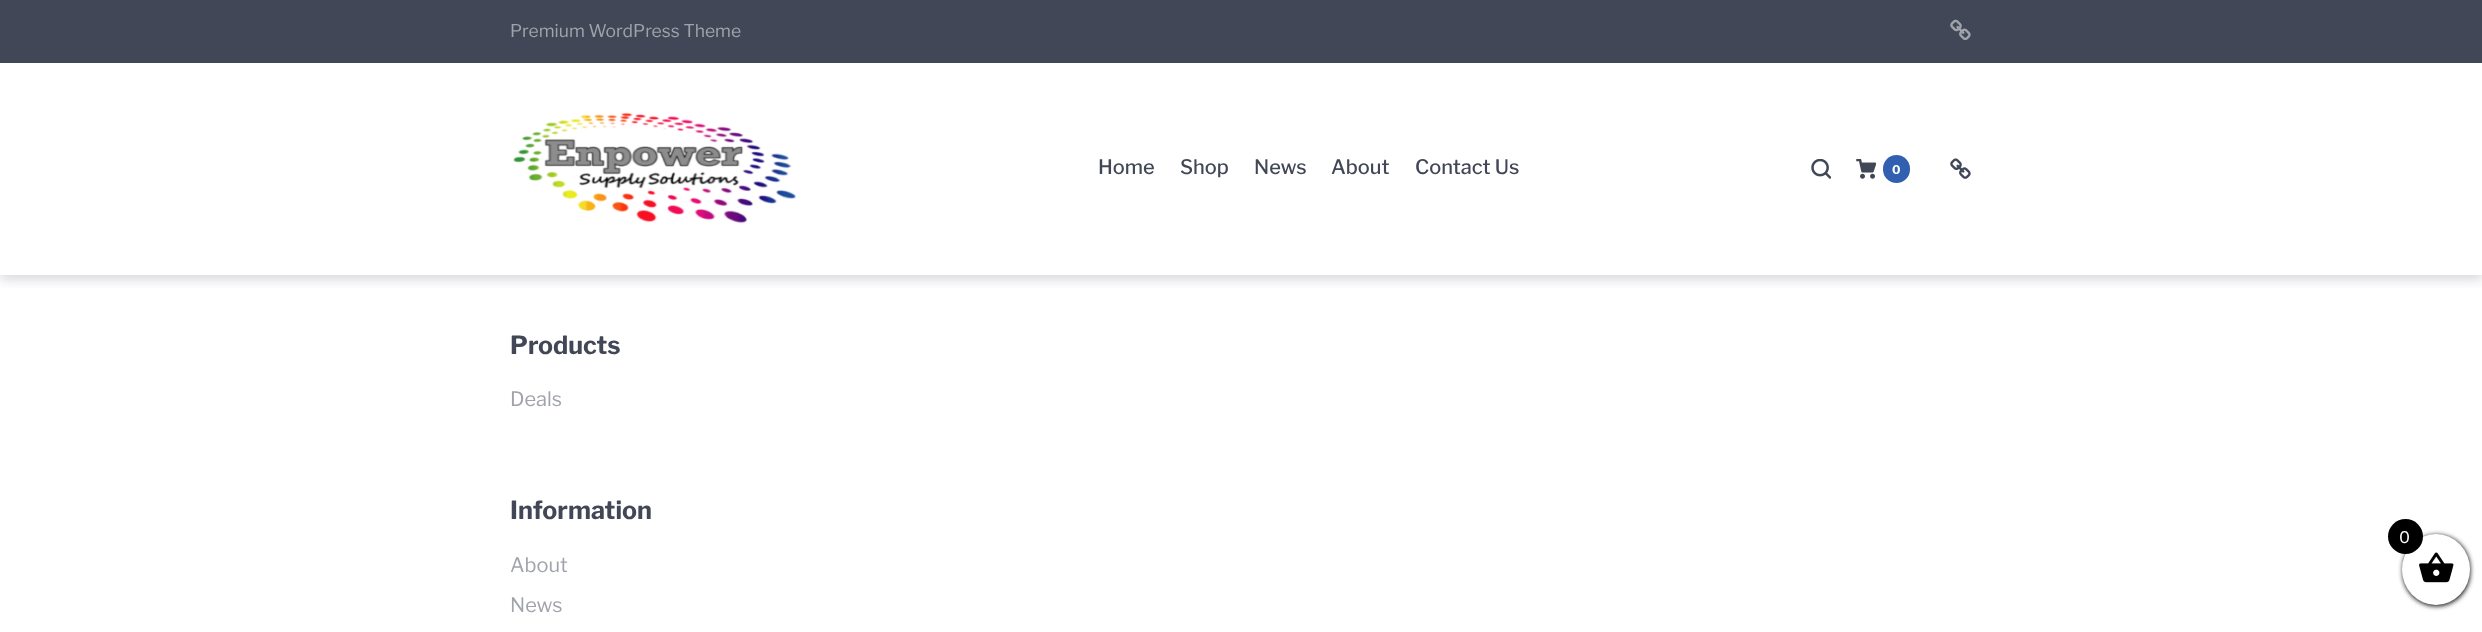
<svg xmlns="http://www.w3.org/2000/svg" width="2482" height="632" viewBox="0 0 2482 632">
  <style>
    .t1 { font: 17.5px Libre Franklin; fill: #a0a3aa; }
    .t2 { font: 500 20px Libre Franklin; fill: #414756; }
    .t3 { font: bold 12px Libre Franklin; fill: #fff; }
    .t4 { font: bold 25px Libre Franklin; fill: #414756; }
    .t5 { font: 20px Libre Franklin; fill: #a0a3aa; }
    .t6 { font: 16px Libre Franklin; fill: #fff; }
  </style>
  <defs>
    <clipPath id="clip1"><rect x="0" y="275" width="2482" height="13"/></clipPath>
  </defs>
  <rect width="100%" height="100%" fill="#fff"/>
  <g clip-path="url(#clip1)">
    <rect x="0" y="68" width="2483" height="212" fill="#41475633" filter="blur(6px)"/>
  </g>
  <rect x="0" y="0" width="2482" height="63" fill="#414756"/>
  <text x="510" y="37" class="t1">Premium WordPress Theme</text>
  <image x="1950" y="19" width="21" height="22" href="images/1.png"/>
  <image x="513" y="112" width="284" height="112" href="images/2.png"/>
  <text x="1098" y="174" class="t2">Home</text>
  <text x="1180" y="174" class="t2">Shop</text>
  <text x="1254" y="174" class="t2">News</text>
  <text x="1331" y="174" class="t2">About</text>
  <text x="1415" y="174" class="t2">Contact Us</text>
  <image x="1811" y="159" width="20" height="20" href="images/3.png"/>
  <image x="1856" y="159" width="20" height="20" href="images/4.png"/>
  <rect x="1883" y="155" width="27" height="28" rx="13.5" fill="#3260b1"/>
  <text x="1892" y="174" class="t3">0</text>
  <image x="1950" y="158" width="21" height="21" href="images/5.png"/>
  <text x="510" y="354" class="t4">Products</text>
  <text x="510" y="406" class="t5">Deals</text>
  <text x="510" y="519" class="t4">Information</text>
  <text x="510" y="572" class="t5">About</text>
  <text x="510" y="612" class="t5">News</text>
  <rect x="2403" y="535" width="67" height="71" rx="33.5" fill="#000" filter="blur(2.5px)"/>
  <ellipse cx="2436" cy="569.5" rx="34" ry="35.5" fill="#fff"/>
  <circle cx="2405.5" cy="536.5" r="17.5" fill="#000"/>
  <text x="2399" y="543" class="t6">0</text>
  <image x="2419" y="552" width="35" height="31" href="images/6.png"/>
</svg>
